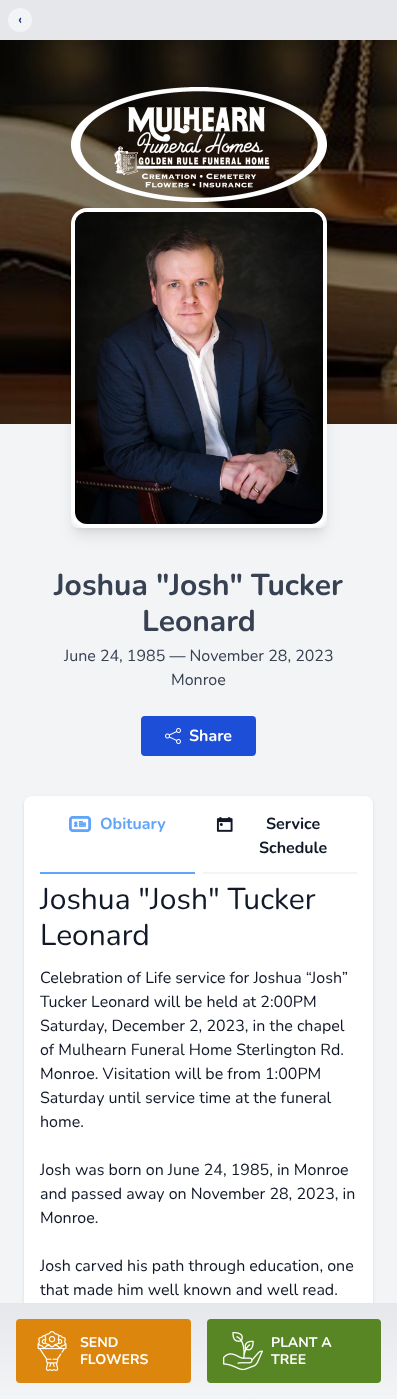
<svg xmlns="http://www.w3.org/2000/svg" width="397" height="1399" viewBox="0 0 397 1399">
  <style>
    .t1 { font: bold 14px Nunito; fill: #1e3a8a; }
    .t2 { font: bold 30px Nunito; fill: #374151; }
    .t3 { font: 16px Nunito; fill: #374151; }
    .t4 { font: bold 16px Nunito; fill: #fff; }
    .t5 { font: bold 16px Nunito; fill: #60a5fa; }
    .t6 { font: bold 16px Nunito; fill: #111827; }
    .t7 { font: 30px Nunito; fill: #111827; }
    .t8 { font: 16px Nunito; fill: #111827; }
    .t9 { font: bold 14px Nunito; fill: #fff; }
  </style>
  <defs>
    <clipPath id="clip1"><path d="M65 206H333V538H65ZM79 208H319C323.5 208 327 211.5 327 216V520C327 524.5 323.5 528 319 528H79C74.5 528 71 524.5 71 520V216C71 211.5 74.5 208 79 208Z" clip-rule="evenodd"/></clipPath>
    <clipPath id="clip2"><path d="M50 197H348V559H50ZM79 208H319C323.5 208 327 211.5 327 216V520C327 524.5 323.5 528 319 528H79C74.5 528 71 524.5 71 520V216C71 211.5 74.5 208 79 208Z" clip-rule="evenodd"/></clipPath>
    <linearGradient id="g1" gradientUnits="userSpaceOnUse" x1="199" y1="1303" x2="199" y2="1399"><stop offset="0" stop-color="#e5e7eb"/><stop offset="1" stop-color="#f3f4f6"/></linearGradient>
  </defs>
  <rect width="100%" height="100%" fill="#f3f4f6"/>
  <rect x="0" y="0" width="397" height="40" fill="#e5e7eb"/>
  <circle cx="20" cy="20" r="12" fill="#f3f4f6"/>
  <text x="18" y="24" class="t1">‹</text>
  <image x="0" y="40" width="397" height="384" href="images/1.png"/>
  <image x="71" y="87" width="256" height="115" href="images/2.png"/>
  <g clip-path="url(#clip1)">
    <rect x="75" y="216" width="248" height="312" rx="4" fill="#0000001a" filter="blur(3px)"/>
  </g>
  <g clip-path="url(#clip2)">
    <rect x="74" y="221" width="250" height="314" rx="5" fill="#0000001a" filter="blur(7.5px)"/>
  </g>
  <rect x="73" y="210" width="252" height="316" rx="14" fill="none" stroke="#fff" stroke-width="4"/>
  <image x="75" y="212" width="248" height="312" href="images/3.png"/>
  <text x="54" y="595" class="t2">Joshua "Josh" Tucker</text>
  <text x="142" y="631" class="t2">Leonard</text>
  <text x="64" y="661" class="t3">June 24, 1985 — November 28, 2023</text>
  <text x="171" y="685" class="t3">Monroe</text>
  <rect x="141" y="716" width="115" height="40" rx="4" fill="#1d4ed8"/>
  <image x="165" y="728" width="16" height="16" href="images/4.png"/>
  <text x="189" y="741" class="t4">Share</text>
  <rect x="24" y="797" width="349" height="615" rx="8" fill="#0000001a" filter="blur(1.5px)"/>
  <rect x="24" y="796" width="349" height="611" rx="8" fill="#fff"/>
  <rect x="40" y="872" width="155" height="2" fill="#60a5fa"/>
  <image x="69" y="816" width="22" height="16" href="images/5.png"/>
  <text x="100" y="829" class="t5">Obituary</text>
  <rect x="203" y="872" width="154" height="2" fill="#f3f4f6"/>
  <image x="216" y="817" width="17" height="15" href="images/6.png"/>
  <text x="266" y="829" class="t6">Service</text>
  <text x="259" y="853" class="t6">Schedule</text>
  <text x="40" y="909" class="t7">Joshua "Josh" Tucker</text>
  <text x="40" y="945" class="t7">Leonard</text>
  <text x="40" y="983" class="t8">Celebration of Life service for Joshua “Josh”</text>
  <text x="40" y="1007" class="t8">Tucker Leonard will be held at 2:00PM</text>
  <text x="40" y="1031" class="t8">Saturday, December 2, 2023, in the chapel</text>
  <text x="40" y="1055" class="t8">of Mulhearn Funeral Home Sterlington Rd.</text>
  <text x="40" y="1079" class="t8">Monroe. Visitation will be from 1:00PM</text>
  <text x="40" y="1103" class="t8">Saturday until service time at the funeral</text>
  <text x="40" y="1127" class="t8">home.</text>
  <text x="40" y="1175" class="t8">Josh was born on June 24, 1985, in Monroe</text>
  <text x="40" y="1199" class="t8">and passed away on November 28, 2023, in</text>
  <text x="40" y="1223" class="t8">Monroe.</text>
  <text x="40" y="1271" class="t8">Josh carved his path through education, one</text>
  <text x="40" y="1295" class="t8">that made him well known and well read.</text>
  <rect x="0" y="1303" width="397" height="96" fill="url(#g1)"/>
  <rect x="16" y="1319" width="175" height="64" rx="4" fill="#dc860d"/>
  <image x="37" y="1331" width="30" height="40" href="images/7.png"/>
  <text x="80" y="1347" class="t9">SEND</text>
  <text x="80" y="1364" class="t9">FLOWERS</text>
  <rect x="207" y="1319" width="174" height="64" rx="4" fill="#588624"/>
  <image x="223" y="1331" width="40" height="40" href="images/8.png"/>
  <text x="271" y="1347" class="t9">PLANT A</text>
  <text x="271" y="1364" class="t9">TREE</text>
</svg>
